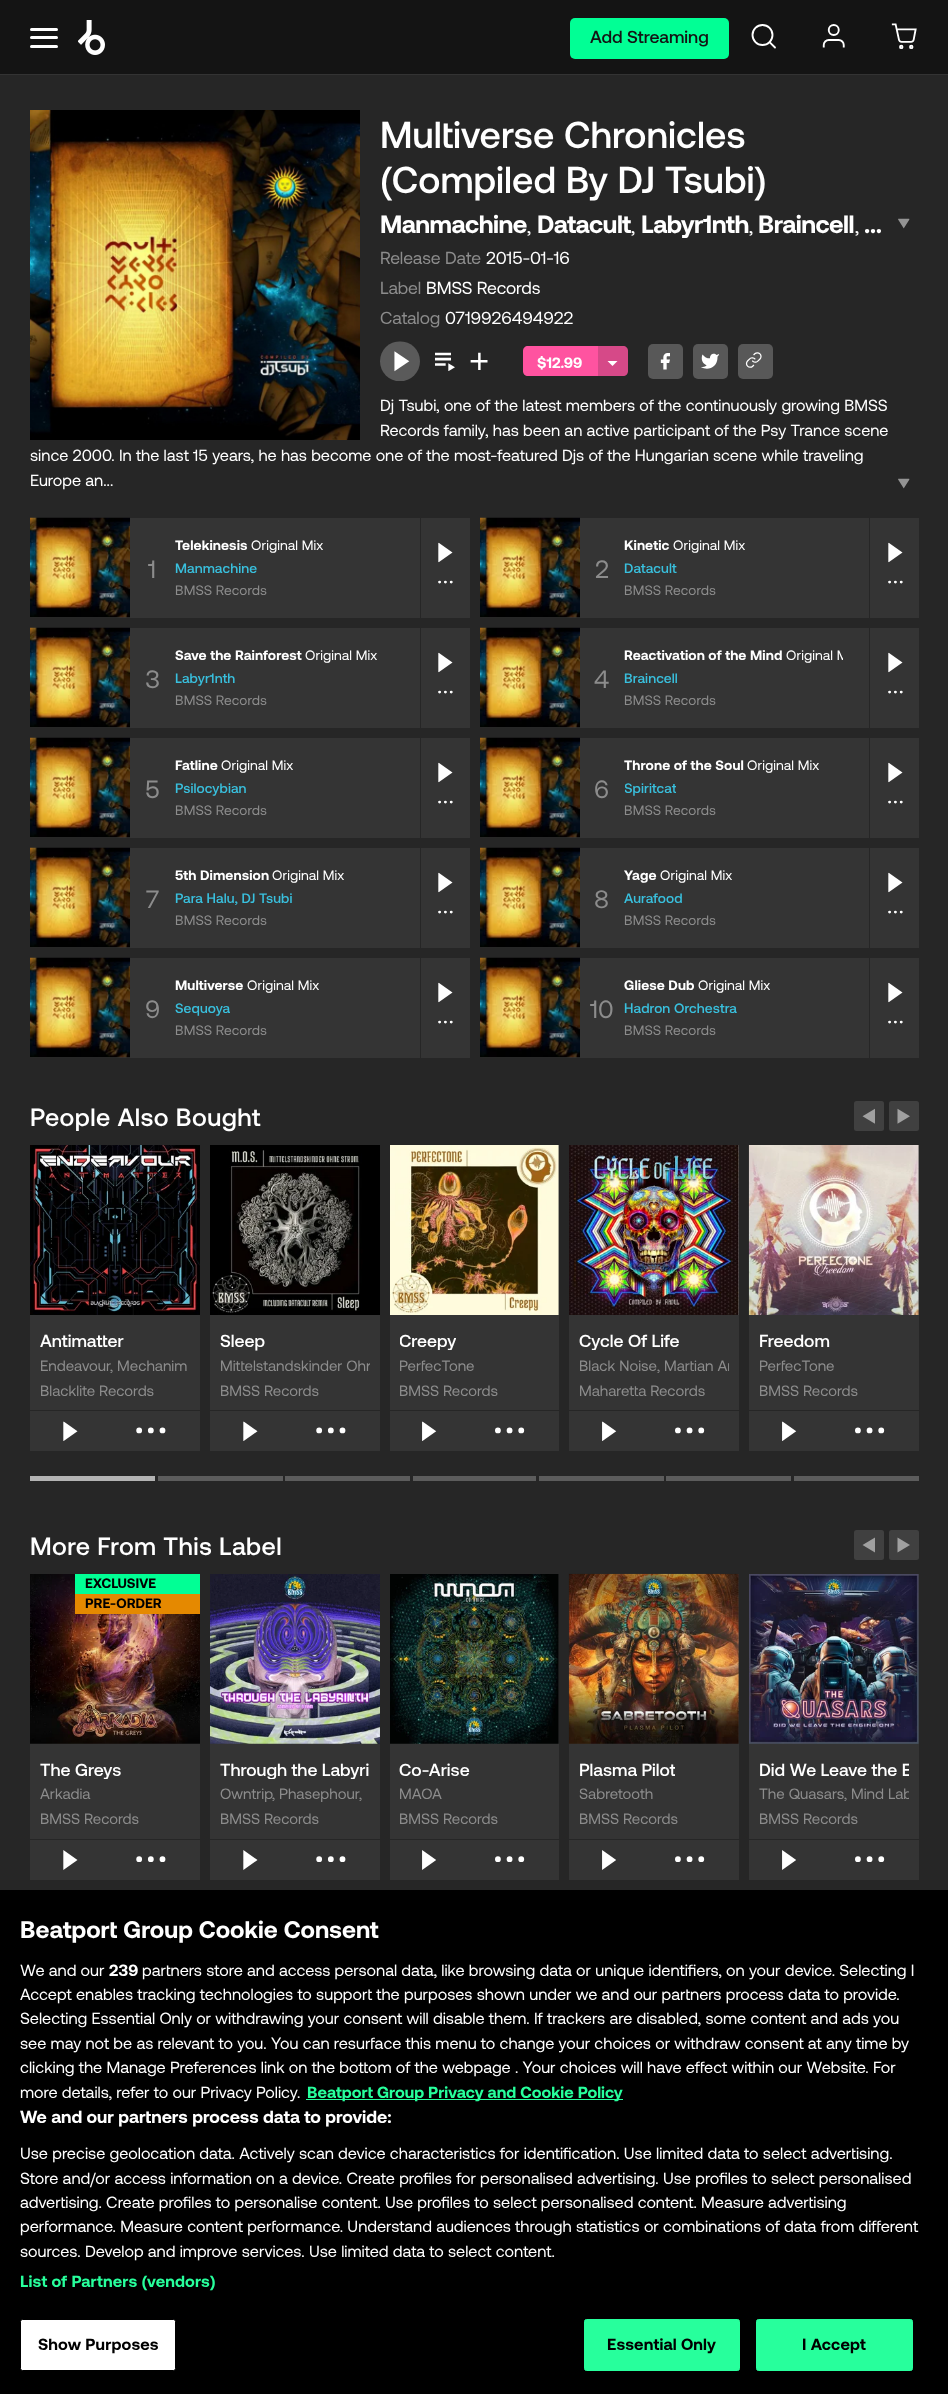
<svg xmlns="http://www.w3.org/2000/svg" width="948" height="2394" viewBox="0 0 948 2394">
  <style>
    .t1 { font: 500 17.5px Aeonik; fill: #141414; }
    .t2 { font: 500 37.5px Aeonik; fill: #fff; }
    .t3 { font: bold 25px Aeonik; letter-spacing: -0.5px; fill: #fff; }
    .t4 { font: 20px Aeonik; fill: #fff; }
    .t5 { font: 17.5px Aeonik; letter-spacing: -0.1px; fill: #8c8c8c; }
    .t6 { font: 17.5px Aeonik; letter-spacing: -0.1px; fill: #fff; }
    .t7 { font: bold 15px Aeonik; fill: #fff; }
    .t8 { font: 16.25px Aeonik; fill: #fff; }
    .t9 { font: 25px Aeonik; fill: #8c8c8c; }
    .t10 { font: bold 13.75px Aeonik; letter-spacing: 0.1px; fill: #fff; }
    .t11 { font: 13.75px Aeonik; letter-spacing: 0.1px; fill: #fff; }
    .t12 { font: 500 13.75px Aeonik; letter-spacing: 0.1px; fill: #39c0de; }
    .t13 { font: 13.75px Aeonik; letter-spacing: 0.1px; fill: #8c8c8c; }
    .t14 { font: 500 25px Aeonik; letter-spacing: 0.4px; fill: #fff; }
    .t15 { font: 500 17.5px Aeonik; fill: #fff; }
    .t16 { font: 15px Aeonik; fill: #8c8c8c; }
    .t17 { font: bold 13.75px Aeonik; fill: #000; }
    .t18 { font: bold 24px Aeonik; fill: #fff; }
    .t19 { font: bold 16.25px Aeonik; fill: #fff; }
    .t20 { font: bold 16.25px Aeonik; fill: #27ff9c; }
    .t21 { font: bold 17.6px Aeonik; fill: #fff; }
    .t22 { font: bold 16.25px Aeonik; letter-spacing: 0.15px; fill: #27ff9c; }
    .t23 { font: bold 16.25px Aeonik; letter-spacing: 0.15px; fill: #000; }
  </style>
  <defs>
    <clipPath id="clip1"><rect x="625" y="643" width="218" height="25"/></clipPath>
    <clipPath id="clip2"><rect x="625" y="778" width="51" height="20"/></clipPath>
    <clipPath id="clip3"><rect x="220" y="1355" width="150" height="20"/></clipPath>
    <clipPath id="clip4"><rect x="400" y="1325" width="56" height="25"/></clipPath>
    <clipPath id="clip5"><rect x="579" y="1325" width="100" height="25"/></clipPath>
    <clipPath id="clip6"><rect x="579" y="1355" width="150" height="20"/></clipPath>
    <clipPath id="clip7"><rect x="40" y="1754" width="81" height="25"/></clipPath>
    <clipPath id="clip8"><rect x="220" y="1754" width="150" height="25"/></clipPath>
    <clipPath id="clip9"><rect x="579" y="1754" width="96" height="25"/></clipPath>
    <clipPath id="clip10"><rect x="759" y="1754" width="150" height="25"/></clipPath>
    <clipPath id="clip11"><rect x="759" y="1784" width="150" height="20"/></clipPath>
  </defs>
  <rect width="100%" height="100%" fill="#262626"/>
  <rect x="0" y="0" width="948" height="74" fill="#141414"/>
  <rect x="0" y="74" width="948" height="1" fill="#333"/>
  <rect x="30" y="36" width="28" height="3" rx="1.5" fill="#fff"/>
  <rect x="30" y="28" width="28" height="3" rx="1.5" fill="#fff"/>
  <rect x="30" y="45" width="28" height="3" rx="1.5" fill="#fff"/>
  <image x="78" y="20" width="27" height="35" href="images/1.png"/>
  <rect x="570" y="18" width="159" height="41" rx="5" fill="#01ff95"/>
  <text x="590" y="43" class="t1">Add Streaming</text>
  <image x="751" y="24" width="25" height="25" href="images/2.png"/>
  <image x="822" y="24" width="23" height="24" href="images/3.png"/>
  <image x="891" y="23" width="26" height="26" href="images/4.png"/>
  <image x="30" y="110" width="330" height="330" href="images/5.png"/>
  <text x="380" y="148" class="t2">Multiverse Chronicles</text>
  <text x="380" y="193" class="t2">(Compiled By DJ Tsubi)</text>
  <text x="380" y="233" class="t3">Manmachine</text>
  <text x="527" y="233" class="t4">,</text>
  <text x="537" y="233" class="t3">Datacult</text>
  <text x="631" y="233" class="t4">,</text>
  <text x="641" y="233" class="t3">Labyr1nth</text>
  <text x="749" y="233" class="t4">,</text>
  <text x="758" y="233" class="t3">Braincell</text>
  <text x="855" y="233" class="t4">,</text>
  <text x="864" y="233" class="t3">…</text>
  <image x="898" y="218" width="12" height="11" href="images/6.png"/>
  <text x="380" y="264" class="t5">Release Date</text>
  <text x="486" y="264" class="t6">2015-01-16</text>
  <text x="380" y="294" class="t5">Label</text>
  <text x="426" y="294" class="t6">BMSS Records</text>
  <text x="380" y="324" class="t5">Catalog</text>
  <text x="445" y="324" class="t6">0719926494922</text>
  <image x="380" y="341" width="40" height="40" href="images/7.png"/>
  <image x="435" y="352" width="20" height="19" href="images/8.png"/>
  <image x="470" y="352" width="18" height="18" href="images/9.png"/>
  <path d="M528 346H598V376H528C525 376 523 374 523 371V351C523 348 525 346 528 346Z" fill="#ff53a0"/>
  <text x="537" y="368" class="t7">$12.99</text>
  <path d="M598 346H623C626 346 628 348 628 351V371C628 374 626 376 623 376H598Z" fill="#d64988"/>
  <path d="M607.5 361H617.5L612.5 366Z" fill="#fff"/>
  <rect x="648" y="344" width="35" height="35" rx="5" fill="#585858"/>
  <image x="660" y="353" width="10" height="17" href="images/10.png"/>
  <rect x="693" y="344" width="35" height="35" rx="5" fill="#585858"/>
  <image x="701" y="353" width="18" height="16" href="images/11.png"/>
  <rect x="738" y="344" width="35" height="35" rx="5" fill="#585858"/>
  <image x="745" y="352" width="17" height="16" href="images/12.png"/>
  <text x="380" y="411" class="t8">Dj Tsubi, one of the latest members of the continuously growing BMSS</text>
  <text x="380" y="436" class="t8">Records family, has been an active participant of the Psy Trance scene</text>
  <text x="30" y="461" class="t8">since 2000. In the last 15 years, he has become one of the most-featured Djs of the Hungarian scene while traveling</text>
  <text x="30" y="486" class="t8">Europe an...</text>
  <image x="898" y="478" width="12" height="11" href="images/6.png"/>
  <rect x="30" y="518" width="440" height="100" fill="#343434"/>
  <image x="30" y="517" width="100" height="101" href="images/13.png"/>
  <text x="148" y="578" class="t9">1</text>
  <text x="175" y="550" class="t10">Telekinesis</text>
  <text x="251" y="550" class="t11">Original Mix</text>
  <text x="175" y="573" class="t12">Manmachine</text>
  <text x="175" y="595" class="t13">BMSS Records</text>
  <rect x="420" y="518" width="1" height="100" fill="#262626"/>
  <image x="438" y="542" width="15" height="21" href="images/14.png"/>
  <image x="438" y="580" width="15" height="4" href="images/15.png"/>
  <rect x="480" y="518" width="439" height="100" fill="#343434"/>
  <image x="480" y="517" width="100" height="101" href="images/16.png"/>
  <text x="595" y="578" class="t9">2</text>
  <text x="624" y="550" class="t10">Kinetic</text>
  <text x="673" y="550" class="t11">Original Mix</text>
  <text x="624" y="573" class="t12">Datacult</text>
  <text x="624" y="595" class="t13">BMSS Records</text>
  <rect x="869" y="518" width="1" height="100" fill="#262626"/>
  <image x="888" y="542" width="15" height="21" href="images/14.png"/>
  <image x="888" y="580" width="15" height="4" href="images/15.png"/>
  <rect x="30" y="628" width="440" height="100" fill="#343434"/>
  <image x="30" y="627" width="100" height="101" href="images/17.png"/>
  <text x="145" y="688" class="t9">3</text>
  <text x="175" y="660" class="t10">Save the Rainforest</text>
  <text x="305" y="660" class="t11">Original Mix</text>
  <text x="175" y="683" class="t12">Labyr1nth</text>
  <text x="175" y="705" class="t13">BMSS Records</text>
  <rect x="420" y="628" width="1" height="100" fill="#262626"/>
  <image x="438" y="652" width="15" height="21" href="images/14.png"/>
  <image x="438" y="690" width="15" height="4" href="images/15.png"/>
  <rect x="480" y="628" width="439" height="100" fill="#343434"/>
  <image x="480" y="627" width="100" height="101" href="images/18.png"/>
  <text x="594" y="688" class="t9">4</text>
  <text x="624" y="660" class="t10">Reactivation of the Mind</text>
  <g clip-path="url(#clip1)">
    <text x="786" y="660" class="t11">Original M</text>
  </g>
  <text x="624" y="683" class="t12">Braincell</text>
  <text x="624" y="705" class="t13">BMSS Records</text>
  <rect x="869" y="628" width="1" height="100" fill="#262626"/>
  <image x="888" y="652" width="15" height="21" href="images/14.png"/>
  <image x="888" y="690" width="15" height="4" href="images/15.png"/>
  <rect x="30" y="738" width="440" height="100" fill="#343434"/>
  <image x="30" y="737" width="100" height="101" href="images/19.png"/>
  <text x="145" y="798" class="t9">5</text>
  <text x="175" y="770" class="t10">Fatline</text>
  <text x="221" y="770" class="t11">Original Mix</text>
  <text x="175" y="793" class="t12">Psilocybian</text>
  <text x="175" y="815" class="t13">BMSS Records</text>
  <rect x="420" y="738" width="1" height="100" fill="#262626"/>
  <image x="438" y="762" width="15" height="21" href="images/14.png"/>
  <image x="438" y="800" width="15" height="4" href="images/15.png"/>
  <rect x="480" y="738" width="439" height="100" fill="#343434"/>
  <image x="480" y="737" width="100" height="101" href="images/20.png"/>
  <text x="594" y="798" class="t9">6</text>
  <text x="624" y="770" class="t10">Throne of the Soul</text>
  <text x="747" y="770" class="t11">Original Mix</text>
  <g clip-path="url(#clip2)">
    <text x="624" y="793" class="t12">Spiritcat</text>
  </g>
  <text x="624" y="815" class="t13">BMSS Records</text>
  <rect x="869" y="738" width="1" height="100" fill="#262626"/>
  <image x="888" y="762" width="15" height="21" href="images/14.png"/>
  <image x="888" y="800" width="15" height="4" href="images/15.png"/>
  <rect x="30" y="848" width="440" height="100" fill="#343434"/>
  <image x="30" y="847" width="100" height="101" href="images/21.png"/>
  <text x="146" y="908" class="t9">7</text>
  <text x="175" y="880" class="t10">5th Dimension</text>
  <text x="272" y="880" class="t11">Original Mix</text>
  <text x="175" y="903" class="t12">Para Halu, DJ Tsubi</text>
  <text x="175" y="925" class="t13">BMSS Records</text>
  <rect x="420" y="848" width="1" height="100" fill="#262626"/>
  <image x="438" y="872" width="15" height="21" href="images/14.png"/>
  <image x="438" y="910" width="15" height="4" href="images/15.png"/>
  <rect x="480" y="848" width="439" height="100" fill="#343434"/>
  <image x="480" y="847" width="100" height="101" href="images/22.png"/>
  <text x="594" y="908" class="t9">8</text>
  <text x="624" y="880" class="t10">Yage</text>
  <text x="660" y="880" class="t11">Original Mix</text>
  <text x="624" y="903" class="t12">Aurafood</text>
  <text x="624" y="925" class="t13">BMSS Records</text>
  <rect x="869" y="848" width="1" height="100" fill="#262626"/>
  <image x="888" y="872" width="15" height="21" href="images/14.png"/>
  <image x="888" y="910" width="15" height="4" href="images/15.png"/>
  <rect x="30" y="958" width="440" height="100" fill="#343434"/>
  <image x="30" y="957" width="100" height="101" href="images/19.png"/>
  <text x="145" y="1018" class="t9">9</text>
  <text x="175" y="990" class="t10">Multiverse</text>
  <text x="247" y="990" class="t11">Original Mix</text>
  <text x="175" y="1013" class="t12">Sequoya</text>
  <text x="175" y="1035" class="t13">BMSS Records</text>
  <rect x="420" y="958" width="1" height="100" fill="#262626"/>
  <image x="438" y="982" width="15" height="21" href="images/14.png"/>
  <image x="438" y="1020" width="15" height="4" href="images/15.png"/>
  <rect x="480" y="958" width="439" height="100" fill="#343434"/>
  <image x="480" y="957" width="100" height="101" href="images/20.png"/>
  <text x="590" y="1018" class="t9">10</text>
  <text x="624" y="990" class="t10">Gliese Dub</text>
  <text x="698" y="990" class="t11">Original Mix</text>
  <text x="624" y="1013" class="t12">Hadron Orchestra</text>
  <text x="624" y="1035" class="t13">BMSS Records</text>
  <rect x="869" y="958" width="1" height="100" fill="#262626"/>
  <image x="888" y="982" width="15" height="21" href="images/14.png"/>
  <image x="888" y="1020" width="15" height="4" href="images/15.png"/>
  <text x="30" y="1126" class="t14">People Also Bought</text>
  <rect x="854" y="1101" width="30" height="30" rx="2.5" fill="#404040"/>
  <image x="862" y="1108" width="13" height="16" href="images/23.png"/>
  <rect x="889" y="1101" width="30" height="30" rx="2.5" fill="#404040"/>
  <image x="897" y="1108" width="13" height="16" href="images/24.png"/>
  <rect x="30" y="1315" width="170" height="136" fill="#343434"/>
  <image x="30" y="1145" width="170" height="170" href="images/25.png"/>
  <text x="40" y="1347" class="t15">Antimatter</text>
  <text x="40" y="1371" class="t16">Endeavour</text>
  <text x="110" y="1371" class="t16">, Mechanim</text>
  <text x="40" y="1396" class="t16">Blacklite Records</text>
  <rect x="30" y="1410" width="170" height="1" fill="#262626"/>
  <image x="63" y="1421" width="15" height="20" href="images/26.png"/>
  <image x="136" y="1427" width="30" height="7" href="images/27.png"/>
  <rect x="210" y="1315" width="170" height="136" fill="#343434"/>
  <image x="210" y="1145" width="170" height="170" href="images/28.png"/>
  <text x="220" y="1347" class="t15">Sleep</text>
  <g clip-path="url(#clip3)">
    <text x="220" y="1371" class="t16">Mittelstandskinder Ohn</text>
  </g>
  <text x="220" y="1396" class="t16">BMSS Records</text>
  <rect x="210" y="1410" width="170" height="1" fill="#262626"/>
  <image x="243" y="1421" width="15" height="20" href="images/29.png"/>
  <image x="316" y="1427" width="30" height="7" href="images/27.png"/>
  <rect x="390" y="1145" width="169" height="306" fill="#343434"/>
  <image x="390" y="1145" width="169" height="170" href="images/30.png"/>
  <g clip-path="url(#clip4)">
    <text x="399" y="1347" class="t15">Creepy</text>
  </g>
  <text x="399" y="1371" class="t16">PerfecTone</text>
  <text x="399" y="1396" class="t16">BMSS Records</text>
  <rect x="390" y="1410" width="169" height="1" fill="#262626"/>
  <image x="422" y="1421" width="15" height="20" href="images/31.png"/>
  <image x="495" y="1427" width="30" height="7" href="images/32.png"/>
  <rect x="569" y="1145" width="170" height="306" fill="#343434"/>
  <image x="569" y="1145" width="170" height="170" href="images/33.png"/>
  <g clip-path="url(#clip5)">
    <text x="579" y="1347" class="t15">Cycle Of Life</text>
  </g>
  <text x="579" y="1371" class="t16">Black Noise</text>
  <text x="657" y="1371" class="t16">,</text>
  <g clip-path="url(#clip6)">
    <text x="664" y="1371" class="t16">Martian Ar</text>
  </g>
  <text x="579" y="1396" class="t16">Maharetta Records</text>
  <rect x="569" y="1410" width="170" height="1" fill="#262626"/>
  <image x="602" y="1421" width="15" height="20" href="images/31.png"/>
  <image x="675" y="1427" width="30" height="7" href="images/34.png"/>
  <rect x="749" y="1145" width="170" height="306" fill="#343434"/>
  <image x="748" y="1145" width="171" height="170" href="images/35.png"/>
  <text x="759" y="1347" class="t15">Freedom</text>
  <text x="759" y="1371" class="t16">PerfecTone</text>
  <text x="759" y="1396" class="t16">BMSS Records</text>
  <rect x="749" y="1410" width="170" height="1" fill="#262626"/>
  <image x="782" y="1421" width="15" height="20" href="images/31.png"/>
  <image x="855" y="1427" width="30" height="7" href="images/34.png"/>
  <rect x="30" y="1476" width="125" height="5" fill="#b3b3b3"/>
  <rect x="158" y="1476" width="125" height="5" fill="#5c5c5c"/>
  <rect x="285" y="1476" width="125" height="5" fill="#5c5c5c"/>
  <rect x="413" y="1476" width="123" height="5" fill="#5c5c5c"/>
  <rect x="539" y="1476" width="125" height="5" fill="#5c5c5c"/>
  <rect x="666" y="1476" width="125" height="5" fill="#5c5c5c"/>
  <rect x="794" y="1476" width="125" height="5" fill="#5c5c5c"/>
  <text x="30" y="1555" class="t14">More From This Label</text>
  <rect x="854" y="1530" width="30" height="30" rx="2.5" fill="#404040"/>
  <image x="862" y="1537" width="13" height="16" href="images/36.png"/>
  <rect x="889" y="1530" width="30" height="30" rx="2.5" fill="#404040"/>
  <image x="897" y="1537" width="13" height="16" href="images/37.png"/>
  <rect x="30" y="1743" width="170" height="137" fill="#343434"/>
  <image x="30" y="1574" width="170" height="170" href="images/38.png"/>
  <rect x="75" y="1574" width="125" height="20" fill="#01ff95"/>
  <text x="85" y="1588" class="t17">EXCLUSIVE</text>
  <rect x="75" y="1594" width="125" height="20" fill="#e58900"/>
  <text x="85" y="1608" class="t17">PRE-ORDER</text>
  <g clip-path="url(#clip7)">
    <text x="40" y="1776" class="t15">The Greys</text>
  </g>
  <text x="40" y="1799" class="t16">Arkadia</text>
  <text x="40" y="1824" class="t16">BMSS Records</text>
  <rect x="30" y="1839" width="170" height="1" fill="#262626"/>
  <image x="63" y="1850" width="15" height="20" href="images/39.png"/>
  <image x="136" y="1856" width="30" height="6" href="images/40.png"/>
  <rect x="210" y="1743" width="170" height="137" fill="#343434"/>
  <image x="210" y="1574" width="170" height="170" href="images/41.png"/>
  <g clip-path="url(#clip8)">
    <text x="220" y="1776" class="t15">Through the Labyri</text>
  </g>
  <text x="220" y="1799" class="t16">Owntrip</text>
  <text x="272" y="1799" class="t16">, Phasephour</text>
  <text x="359" y="1799" class="t16">,</text>
  <text x="220" y="1824" class="t16">BMSS Records</text>
  <rect x="210" y="1839" width="170" height="1" fill="#262626"/>
  <image x="243" y="1850" width="15" height="20" href="images/42.png"/>
  <image x="316" y="1856" width="30" height="6" href="images/40.png"/>
  <rect x="390" y="1574" width="169" height="306" fill="#343434"/>
  <image x="390" y="1574" width="169" height="170" href="images/43.png"/>
  <text x="399" y="1776" class="t15">Co-Arise</text>
  <text x="399" y="1799" class="t16">MAOA</text>
  <text x="399" y="1824" class="t16">BMSS Records</text>
  <rect x="390" y="1839" width="169" height="1" fill="#262626"/>
  <image x="422" y="1850" width="14" height="20" href="images/44.png"/>
  <image x="495" y="1856" width="30" height="6" href="images/45.png"/>
  <rect x="569" y="1574" width="170" height="306" fill="#343434"/>
  <image x="568" y="1573" width="171" height="171" href="images/46.png"/>
  <g clip-path="url(#clip9)">
    <text x="579" y="1776" class="t15">Plasma Pilot</text>
  </g>
  <text x="579" y="1799" class="t16">Sabretooth</text>
  <text x="579" y="1824" class="t16">BMSS Records</text>
  <rect x="569" y="1839" width="170" height="1" fill="#262626"/>
  <image x="602" y="1850" width="14" height="20" href="images/44.png"/>
  <image x="675" y="1856" width="30" height="6" href="images/47.png"/>
  <rect x="749" y="1574" width="170" height="306" fill="#343434"/>
  <image x="749" y="1574" width="170" height="170" href="images/48.png"/>
  <g clip-path="url(#clip10)">
    <text x="759" y="1776" class="t15">Did We Leave the E</text>
  </g>
  <text x="759" y="1799" class="t16">The Quasars,</text>
  <g clip-path="url(#clip11)">
    <text x="851" y="1799" class="t16">Mind Lab</text>
  </g>
  <text x="759" y="1824" class="t16">BMSS Records</text>
  <rect x="749" y="1839" width="170" height="1" fill="#262626"/>
  <image x="782" y="1850" width="14" height="20" href="images/44.png"/>
  <image x="855" y="1856" width="30" height="6" href="images/47.png"/>
  <rect x="0" y="1890" width="948" height="504" fill="#000"/>
  <text x="20" y="1938" class="t18">Beatport Group Cookie Consent</text>
  <text x="20" y="1976" class="t8">We and our</text>
  <text x="109" y="1976" class="t19">239</text>
  <text x="142" y="1976" class="t8">partners store and access personal data, like browsing data or unique identifiers, on your device. Selecting I</text>
  <text x="20" y="2000" class="t8">Accept enables tracking technologies to support the purposes shown under we and our partners process data to provide.</text>
  <text x="20" y="2024" class="t8">Selecting Essential Only or withdrawing your consent will disable them. If trackers are disabled, some content and ads you</text>
  <text x="20" y="2049" class="t8">see may not be as relevant to you. You can resurface this menu to change your choices or withdraw consent at any time by</text>
  <text x="20" y="2073" class="t8">clicking the Manage Preferences link on the bottom of the webpage . Your choices will have effect within our Website. For</text>
  <text x="20" y="2098" class="t8">more details, refer to our Privacy Policy.</text>
  <rect x="306" y="2099" width="317" height="1" fill="#27ff9c"/>
  <text x="307" y="2098" class="t20">Beatport Group Privacy and Cookie Policy</text>
  <text x="20" y="2123" class="t21">We and our partners process data to provide:</text>
  <text x="20" y="2159" class="t8">Use precise geolocation data. Actively scan device characteristics for identification. Use limited data to select advertising.</text>
  <text x="20" y="2184" class="t8">Store and/or access information on a device. Create profiles for personalised advertising. Use profiles to select personalised</text>
  <text x="20" y="2208" class="t8">advertising. Create profiles to personalise content. Use profiles to select personalised content. Measure advertising</text>
  <text x="20" y="2232" class="t8">performance. Measure content performance. Understand audiences through statistics or combinations of data from different</text>
  <text x="20" y="2257" class="t8">sources. Develop and improve services. Use limited data to select content.</text>
  <text x="20" y="2287" class="t22">List of Partners (vendors)</text>
  <rect x="20.5" y="2319.5" width="155" height="51" rx="2" fill="#fff" stroke="#000"/>
  <text x="38" y="2350" class="t23">Show Purposes</text>
  <rect x="584.5" y="2319.5" width="155" height="51" rx="2" fill="#27ff9c" stroke="#27ff9c"/>
  <text x="607" y="2350" class="t23">Essential Only</text>
  <rect x="756.5" y="2319.5" width="156" height="51" rx="2" fill="#27ff9c" stroke="#27ff9c"/>
  <text x="802" y="2350" class="t23">I Accept</text>
</svg>
